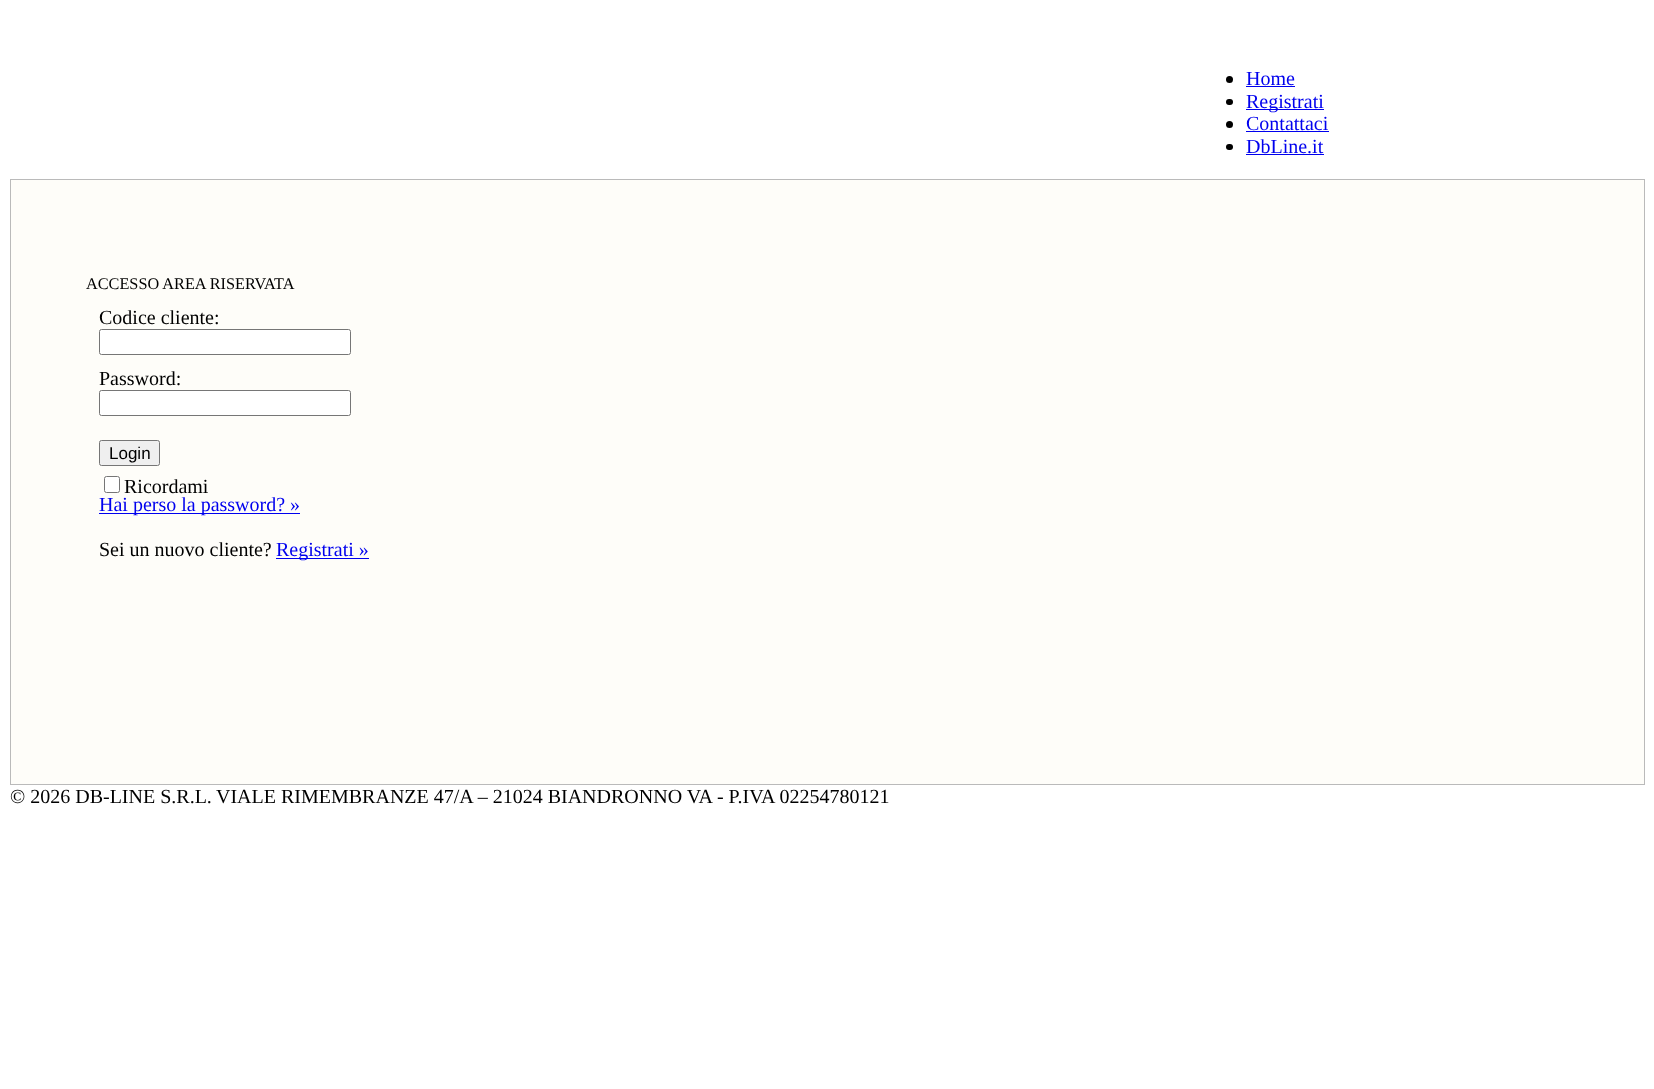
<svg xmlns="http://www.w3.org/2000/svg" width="1654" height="1089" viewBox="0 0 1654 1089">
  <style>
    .t1 { font: 20px Liberation Serif; fill: #00e; }
    .t2 { font: 16.25px Liberation Serif; fill: #000; }
    .t3 { font: 20px Liberation Serif; fill: #000; }
    .t4 { font: 17px Liberation Sans; fill: #000; }
  </style>
  <rect width="100%" height="100%" fill="#fff"/>
  <circle cx="1229.5" cy="79.5" r="3.5" fill="#000"/>
  <text x="1246" y="85" class="t1">Home</text>
  <rect x="1246" y="86" width="49" height="1" fill="#00e"/>
  <rect x="1226" y="99" width="7" height="6" rx="3" fill="#000"/>
  <rect x="1246" y="109" width="78" height="1" fill="#00e"/>
  <text x="1246" y="108" class="t1">Registrati</text>
  <circle cx="1229.5" cy="124.5" r="3.5" fill="#000"/>
  <text x="1246" y="130" class="t1">Contattaci</text>
  <rect x="1246" y="131" width="83" height="1" fill="#00e"/>
  <rect x="1226" y="144" width="7" height="6" rx="3" fill="#000"/>
  <text x="1246" y="153" class="t1">DbLine.it</text>
  <rect x="1246" y="154" width="78" height="1" fill="#00e"/>
  <rect x="10.5" y="179.5" width="1634" height="605" fill="#fefdf9" stroke="#bababa"/>
  <text x="86" y="289" class="t2">ACCESSO AREA RISERVATA</text>
  <text x="99" y="324" class="t3">Codice cliente:</text>
  <rect x="99.5" y="329.5" width="251" height="25" rx="2" fill="#fff" stroke="#767676"/>
  <text x="99" y="385" class="t3">Password:</text>
  <rect x="99.5" y="390.5" width="251" height="25" rx="2" fill="#fff" stroke="#767676"/>
  <rect x="99.5" y="440.5" width="60" height="25" rx="2" fill="#efefef" stroke="#767676"/>
  <text x="109" y="459" class="t4">Login</text>
  <rect x="104.5" y="476.5" width="15" height="16" rx="2" fill="#fff" stroke="#767676"/>
  <text x="124" y="493" class="t3">Ricordami</text>
  <rect x="99" y="513" width="201" height="1" fill="#00e"/>
  <text x="99" y="511" class="t1">Hai perso la password? »</text>
  <text x="99" y="556" class="t3">Sei un nuovo cliente?</text>
  <rect x="276" y="558" width="93" height="1" fill="#00e"/>
  <text x="276" y="556" class="t1">Registrati »</text>
  <text x="10" y="803" class="t3">© 2026 DB-LINE S.R.L.</text>
  <text x="216" y="803" class="t3">VIALE RIMEMBRANZE 47/A – 21024 BIANDRONNO VA - P.IVA 02254780121</text>
</svg>
